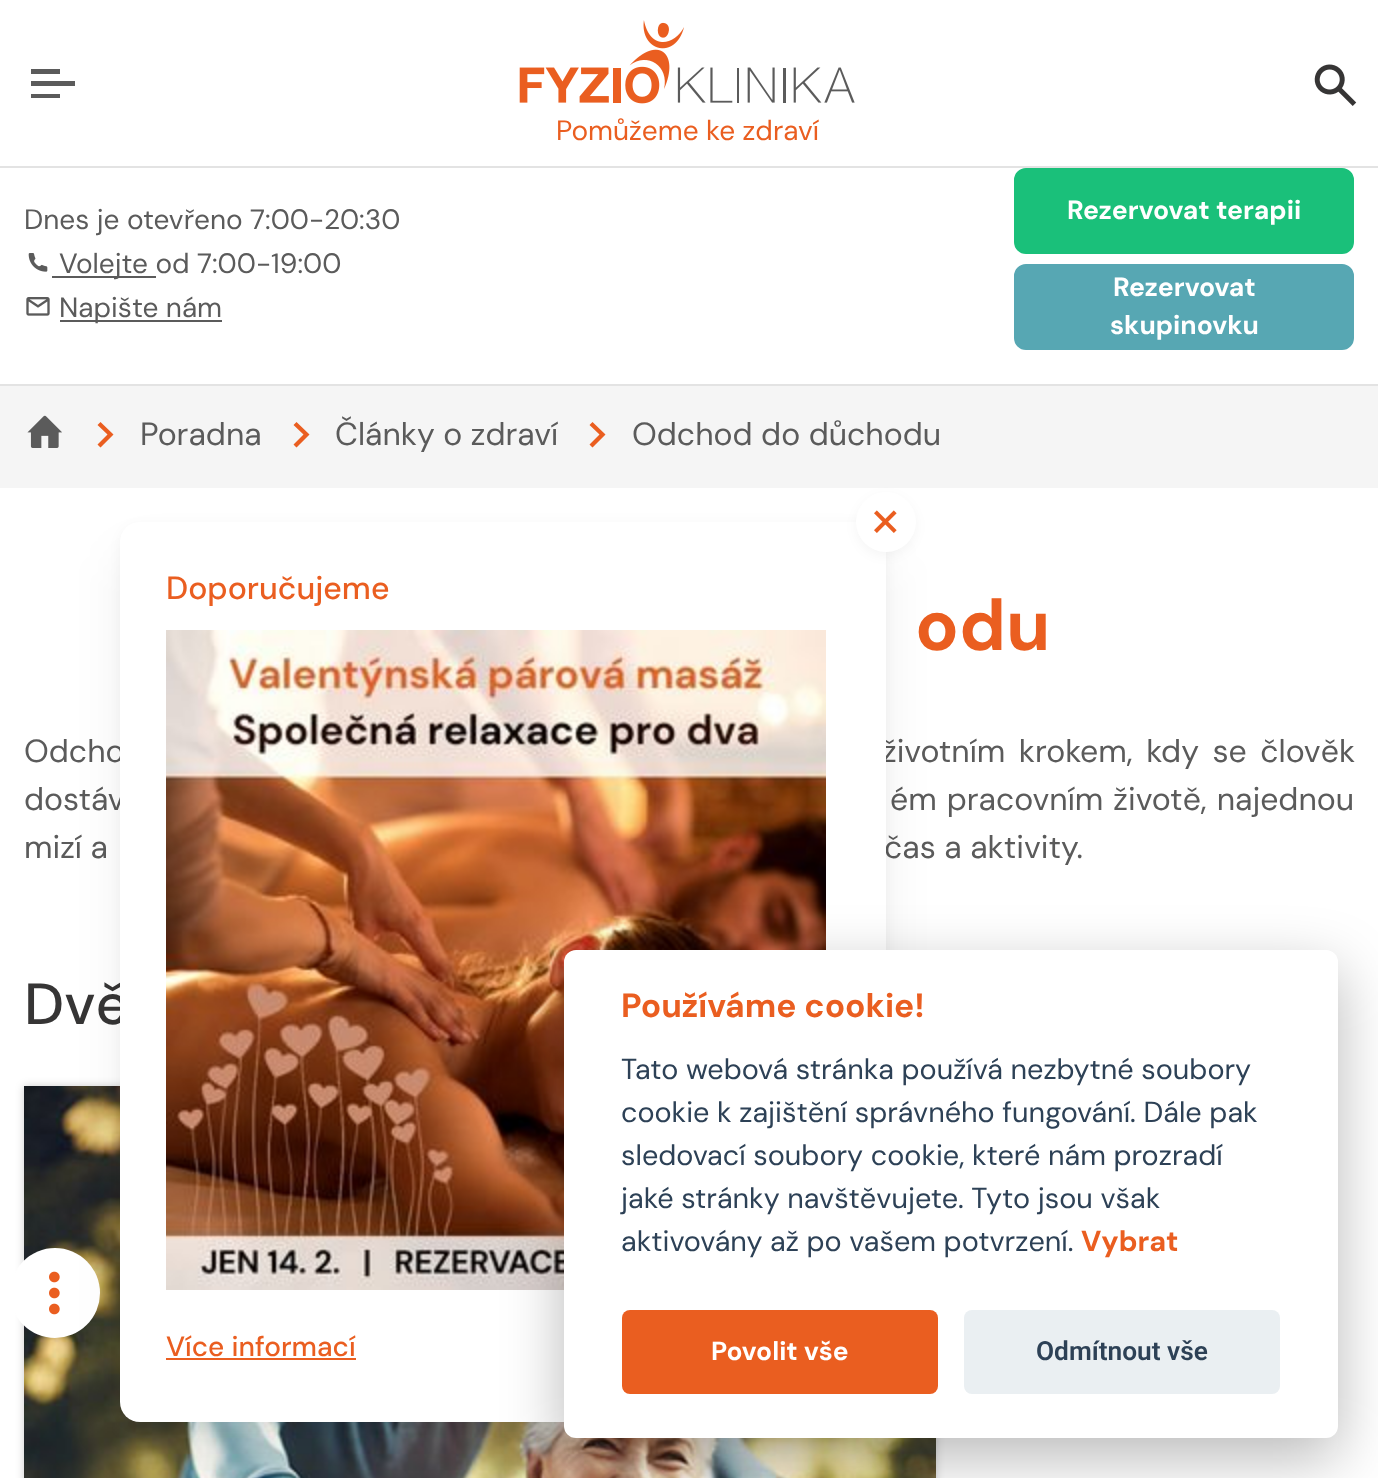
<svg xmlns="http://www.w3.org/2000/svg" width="1378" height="1478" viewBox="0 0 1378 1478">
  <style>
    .t1 { font: 28px DM Sans; fill: #ea5e20; }
    .t2 { font: 28px DM Sans; fill: #5b5b5b; }
    .t3 { font: bold 26.5px DM Sans; fill: #fff; }
    .t4 { font: 32px DM Sans; fill: #5b5b5b; }
    .t5 { font: bold 72px DM Sans; fill: #ea5e20; }
    .t6 { font: 500 58px DM Sans; fill: #363535; }
    .t7 { font: 500 32px DM Sans; fill: #ea5e20; }
    .t8 { font: 500 28px DM Sans; fill: #ea5e20; }
    .t9 { font: bold 33.5px DM Sans; fill: #ea5e20; }
    .t10 { font: 28.8px DM Sans; fill: #2d4156; }
    .t11 { font: bold 28.8px DM Sans; fill: #ea5e20; }
    .t12 { font: bold 26.25px DM Sans; fill: #fff; }
    .t13 { font: 600 26.25px Roboto; fill: #2d4156; }
  </style>
  <rect width="100%" height="100%" fill="#fff"/>
  <rect x="0" y="384" width="1378" height="2" fill="#e3e3e3"/>
  <path d="M60 98H31V94H60ZM75 86H31V81H75ZM60 74H31V69H60Z" fill="#5b5b5b"/>
  <image x="1314" y="64" width="43" height="42" href="images/1.png"/>
  <image x="519" y="20" width="336" height="84" href="images/2.png"/>
  <text x="556" y="140" class="t1">Pomůžeme ke zdraví</text>
  <rect x="0" y="166" width="1378" height="2" fill="#e3e3e3"/>
  <text x="24" y="229" class="t2">Dnes je otevřeno 7:00-20:30</text>
  <image x="28" y="253" width="20" height="19" href="images/3.png"/>
  <rect x="52" y="276" width="104" height="2" fill="#5b5b5b"/>
  <text x="59" y="273" class="t2">Volejte od 7:00-19:00</text>
  <image x="26" y="297" width="24" height="19" href="images/4.png"/>
  <rect x="60" y="320" width="162" height="2" fill="#5b5b5b"/>
  <text x="59" y="317" class="t2">Napište nám</text>
  <rect x="1015" y="169" width="338" height="84" rx="11" fill="#1ac07a" stroke="#1ac07a" stroke-width="2"/>
  <text x="1067" y="219" class="t3">Rezervovat terapii</text>
  <rect x="1015" y="265" width="338" height="84" rx="11" fill="#57a7b3" stroke="#57a7b3" stroke-width="2"/>
  <text x="1113" y="296" class="t3">Rezervovat</text>
  <text x="1110" y="334" class="t3">skupinovku</text>
  <rect x="0" y="386" width="1378" height="102" fill="#f5f5f5"/>
  <image x="27" y="415" width="35" height="33" href="images/5.png"/>
  <path d="M113.5 434.5L100.5 422L97.5 425L107.5 434.5L97.5 444.5L100.5 447.5Z" fill="#ea5e20"/>
  <text x="140" y="445" class="t4">Poradna</text>
  <path d="M309.5 434.5L296.5 422L293.5 425L303.5 434.5L293.5 444.5L296.5 447.5Z" fill="#ea5e20"/>
  <text x="335" y="445" class="t4">Články o zdraví</text>
  <path d="M605.5 434.5L592.5 422L589.5 425L599.5 434.5L589.5 444.5L592.5 447.5Z" fill="#ea5e20"/>
  <text x="632" y="445" class="t4">Odchod do důchodu</text>
  <text x="915" y="650" class="t5">odu</text>
  <text x="24" y="762" word-spacing="5" class="t4">Odcho</text>
  <text x="882" y="762" word-spacing="5" class="t4">životním krokem, kdy se člověk</text>
  <text x="24" y="810" word-spacing="1.5" class="t4">dostáv</text>
  <text x="890" y="810" word-spacing="1.5" class="t4">ém pracovním životě, najednou</text>
  <text x="24" y="858" class="t4">mizí a</text>
  <text x="884" y="858" class="t4">čas a aktivity.</text>
  <text x="24" y="1024" class="t6">Dvě</text>
  <rect x="24" y="1086" width="912" height="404" fill="#00000033" filter="blur(4px)"/>
  <image x="24" y="1086" width="912" height="392" href="images/6.png"/>
  <circle cx="55" cy="1293" r="45" fill="#fff"/>
  <image x="49" y="1271" width="11" height="44" href="images/7.png"/>
  <rect x="120" y="526" width="766" height="900" rx="20" fill="#0000000a" filter="blur(6px)"/>
  <rect x="120" y="554" width="766" height="900" rx="20" fill="#0000000f" filter="blur(24px)"/>
  <rect x="120" y="522" width="766" height="900" rx="20" fill="#fff"/>
  <rect x="856" y="496" width="60" height="60" rx="30" fill="#0000000a" filter="blur(6px)"/>
  <circle cx="886" cy="522" r="30" fill="#fff"/>
  <image x="874" y="510" width="23" height="23" href="images/8.png"/>
  <text x="166" y="599" class="t7">Doporučujeme</text>
  <image x="166" y="630" width="660" height="660" href="images/9.png"/>
  <text x="166" y="1356" class="t8">Více informací</text>
  <rect x="166" y="1358" width="190" height="2" fill="#ea5e20"/>
  <rect x="564" y="970" width="774" height="488" rx="12" fill="#02020347" filter="blur(30px)"/>
  <rect x="564" y="950" width="774" height="488" rx="12" fill="#fff"/>
  <text x="621" y="1017" class="t9">Používáme cookie!</text>
  <text x="621" y="1079" class="t10">Tato webová stránka používá nezbytné soubory</text>
  <text x="621" y="1122" class="t10">cookie k zajištění správného fungování. Dále pak</text>
  <text x="621" y="1165" class="t10">sledovací soubory cookie, které nám prozradí</text>
  <text x="621" y="1208" class="t10">jaké stránky navštěvujete. Tyto jsou však</text>
  <text x="621" y="1251" class="t10">aktivovány až po vašem potvrzení.</text>
  <text x="1081" y="1251" class="t11">Vybrat</text>
  <rect x="622" y="1310" width="316" height="84" rx="8" fill="#ea5e20"/>
  <text x="711" y="1360" class="t12">Povolit vše</text>
  <rect x="964" y="1310" width="316" height="84" rx="8" fill="#eaeff2"/>
  <text x="1036" y="1360" class="t13">Odmítnout vše</text>
</svg>
